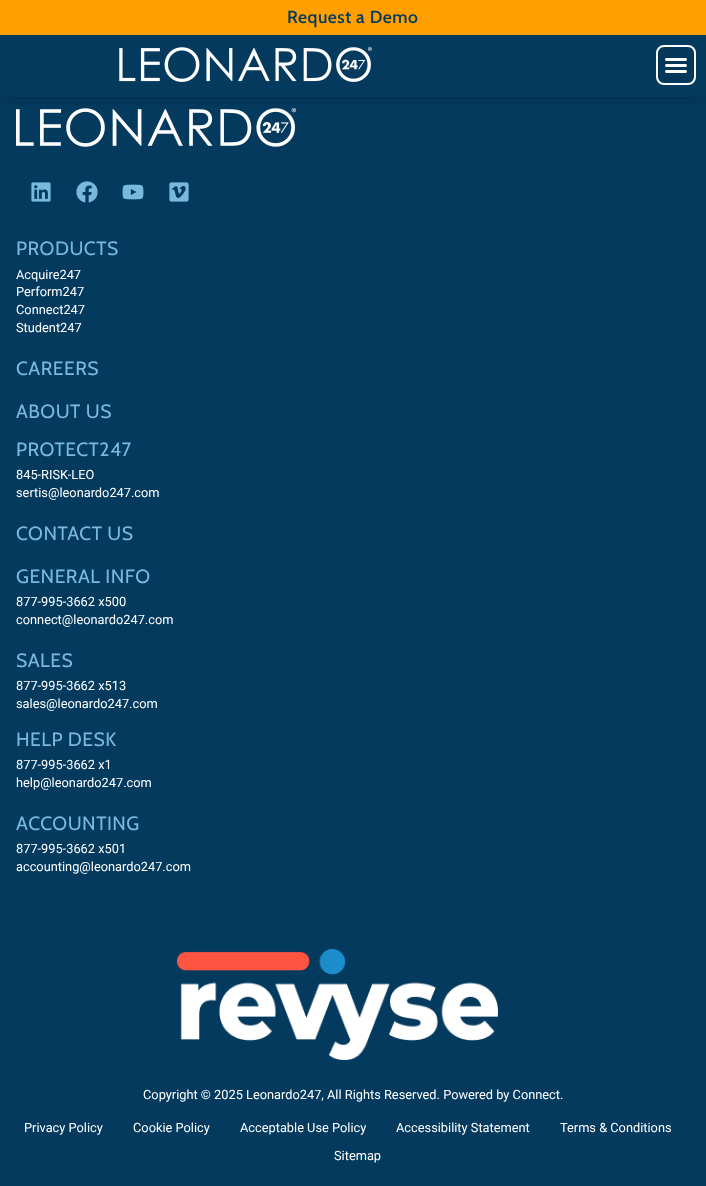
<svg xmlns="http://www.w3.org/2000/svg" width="706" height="1186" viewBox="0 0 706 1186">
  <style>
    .t1 { font: 600 17.5px Cabin; letter-spacing: 0.5px; fill: #043a5e; }
    .t2 { font: 19.25px Cabin; letter-spacing: 0.5px; fill: #78b9dd; }
    .t3 { font: 12.8px Roboto; fill: #fff; }
  </style>
  <rect width="100%" height="100%" fill="#043a5e"/>
  <image x="16" y="108" width="280" height="39" href="images/3.png"/>
  <rect x="5" y="5" width="696" height="87" fill="#00000080" filter="blur(7.5px)"/>
  <rect x="0" y="35" width="706" height="62" fill="#043a5e"/>
  <rect x="0" y="0" width="706" height="35" fill="#ff9f00"/>
  <text x="287" y="23" class="t1">Request a Demo</text>
  <image x="119" y="47" width="253" height="35" href="images/1.png"/>
  <rect x="657" y="46" width="38" height="38" rx="7" fill="#043759" stroke="#fff" stroke-width="2"/>
  <image x="665" y="58" width="22" height="15" href="images/2.png"/>
  <image x="31" y="182" width="20" height="20" href="images/4.png"/>
  <image x="76" y="181" width="22" height="22" href="images/5.png"/>
  <image x="122" y="184" width="22" height="16" href="images/6.png"/>
  <image x="169" y="182" width="20" height="20" href="images/7.png"/>
  <text x="16" y="255" class="t2">PRODUCTS</text>
  <text x="16" y="279" class="t3">Acquire247</text>
  <text x="16" y="296" class="t3">Perform247</text>
  <text x="16" y="314" class="t3">Connect247</text>
  <text x="16" y="332" class="t3">Student247</text>
  <text x="16" y="375" class="t2">CAREERS</text>
  <text x="16" y="418" class="t2">ABOUT US</text>
  <text x="16" y="456" class="t2">PROTECT247</text>
  <text x="16" y="479" class="t3">845-RISK-LEO</text>
  <text x="16" y="497" class="t3">sertis@leonardo247.com</text>
  <text x="16" y="540" class="t2">CONTACT US</text>
  <text x="16" y="583" class="t2">GENERAL INFO</text>
  <text x="16" y="606" class="t3">877-995-3662 x500</text>
  <text x="16" y="624" class="t3">connect@leonardo247.com</text>
  <text x="16" y="667" class="t2">SALES</text>
  <text x="16" y="690" class="t3">877-995-3662 x513</text>
  <text x="16" y="708" class="t3">sales@leonardo247.com</text>
  <text x="16" y="746" class="t2">HELP DESK</text>
  <text x="16" y="769" class="t3">877-995-3662 x1</text>
  <text x="16" y="787" class="t3">help@leonardo247.com</text>
  <text x="16" y="830" class="t2">ACCOUNTING</text>
  <text x="16" y="853" class="t3">877-995-3662 x501</text>
  <text x="16" y="871" class="t3">accounting@leonardo247.com</text>
  <image x="177" y="949" width="321" height="111" href="images/8.png"/>
  <text x="143" y="1099" class="t3">Copyright © 2025 Leonardo247, All Rights Reserved. Powered by Connect.</text>
  <text x="24" y="1132" class="t3">Privacy Policy</text>
  <text x="133" y="1132" class="t3">Cookie Policy</text>
  <text x="240" y="1132" class="t3">Acceptable Use Policy</text>
  <text x="396" y="1132" class="t3">Accessibility Statement</text>
  <text x="560" y="1132" class="t3">Terms &amp; Conditions</text>
  <text x="334" y="1160" class="t3">Sitemap</text>
</svg>
